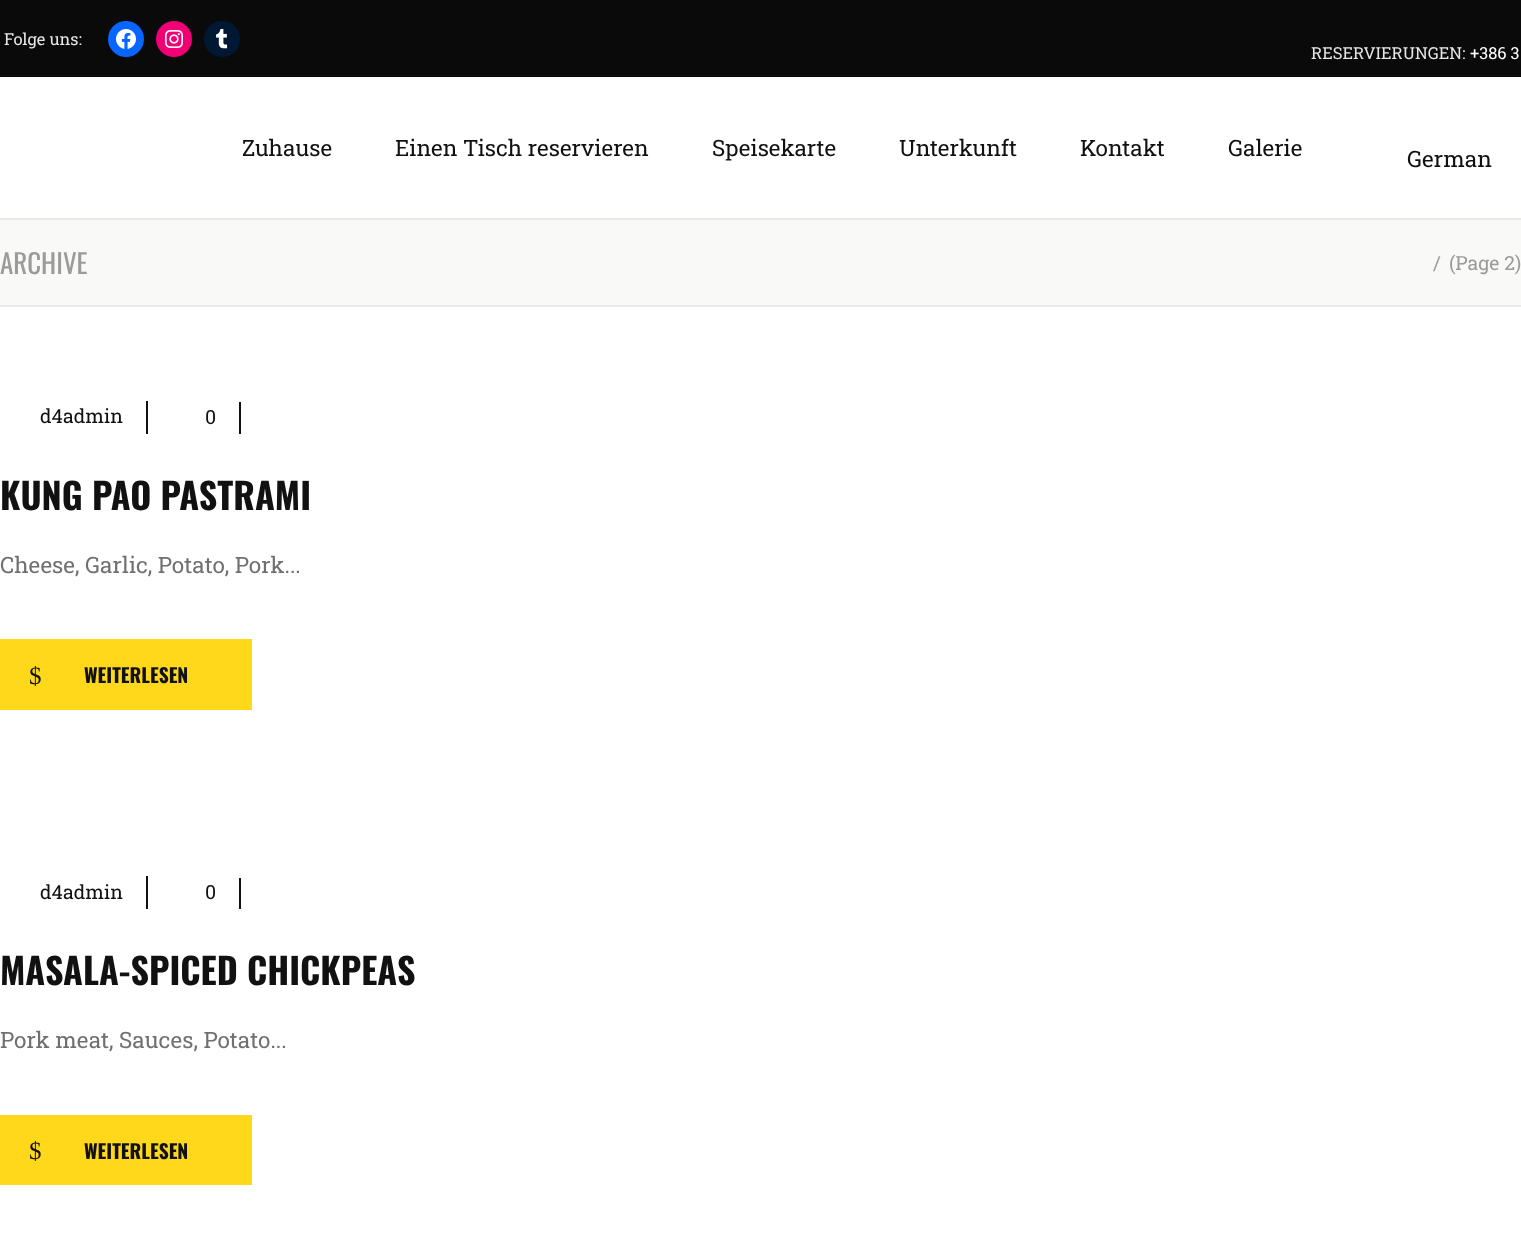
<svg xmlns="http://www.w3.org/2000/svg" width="1521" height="1236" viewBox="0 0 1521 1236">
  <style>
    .t1 { font: 16.5px Roboto Slab; fill: #e6e6e6; }
    .t2 { font: 16.5px Roboto Slab; fill: #fff; }
    .t3 { font: 22.5px Roboto Slab; fill: #111; }
    .t4 { font: 27px Oswald; fill: #9b9b9b; }
    .t5 { font: 19.5px Roboto Slab; fill: #9b9b9b; }
    .t6 { font: 19.5px Roboto Slab; fill: #111; }
    .t7 { font: bold 36px Oswald; fill: #111; }
    .t8 { font: 22.5px Roboto Slab; fill: #707070; }
    .t9 { font: 25px Liberation Serif; fill: #111; }
    .t10 { font: bold 19.5px Oswald; fill: #111; }
  </style>
  <rect width="100%" height="100%" fill="#fff"/>
  <rect x="0" y="0" width="1521" height="77" fill="#0a0a0a"/>
  <text x="4" y="45" class="t1">Folge uns:</text>
  <circle cx="126" cy="39" r="18" fill="#0866ff"/>
  <image x="116" y="29" width="20" height="20" href="images/1.png"/>
  <circle cx="174" cy="39" r="18" fill="#f00075"/>
  <image x="165" y="30" width="18" height="18" href="images/2.png"/>
  <circle cx="222" cy="39" r="18" fill="#011835"/>
  <image x="216" y="29" width="12" height="20" href="images/3.png"/>
  <text x="1311" y="59" class="t1">RESERVIERUNGEN:</text>
  <text x="1470" y="59" class="t2">+386 3</text>
  <rect x="0" y="218" width="1521" height="2" fill="#e9e9e8"/>
  <text x="242" y="156" class="t3">Zuhause</text>
  <text x="395" y="156" class="t3">Einen Tisch reservieren</text>
  <text x="712" y="156" class="t3">Speisekarte</text>
  <text x="899" y="156" class="t3">Unterkunft</text>
  <text x="1080" y="156" class="t3">Kontakt</text>
  <text x="1228" y="156" class="t3">Galerie</text>
  <text x="1407" y="167" class="t3">German</text>
  <rect x="0" y="220" width="1521" height="85" fill="#f9f9f8"/>
  <rect x="0" y="305" width="1521" height="2" fill="#e9e9e8"/>
  <text x="0" y="274" class="t4">ARCHIVE</text>
  <text x="1433" y="270" class="t5">/</text>
  <text x="1449" y="270" class="t5">(Page 2)</text>
  <rect x="146" y="401" width="2" height="33" fill="#111"/>
  <text x="40" y="423" class="t6">d4admin</text>
  <rect x="239" y="402" width="2" height="32" fill="#111"/>
  <text x="205" y="424" class="t6">0</text>
  <text x="0" y="510" class="t7">KUNG PAO PASTRAMI</text>
  <text x="0" y="573" class="t8">Cheese, Garlic, Potato, Pork...</text>
  <rect x="0" y="639" width="252" height="71" fill="#ffd71b"/>
  <text x="29" y="684" class="t9">$</text>
  <text x="84" y="683" class="t10">WEITERLESEN</text>
  <rect x="146" y="876" width="2" height="33" fill="#111"/>
  <text x="40" y="899" class="t6">d4admin</text>
  <rect x="239" y="878" width="2" height="31" fill="#111"/>
  <text x="205" y="899" class="t6">0</text>
  <text x="0" y="985" class="t7">MASALA-SPICED CHICKPEAS</text>
  <text x="0" y="1048" class="t8">Pork meat, Sauces, Potato...</text>
  <rect x="0" y="1115" width="252" height="70" fill="#ffd71b"/>
  <text x="29" y="1159" class="t9">$</text>
  <text x="84" y="1159" class="t10">WEITERLESEN</text>
</svg>
